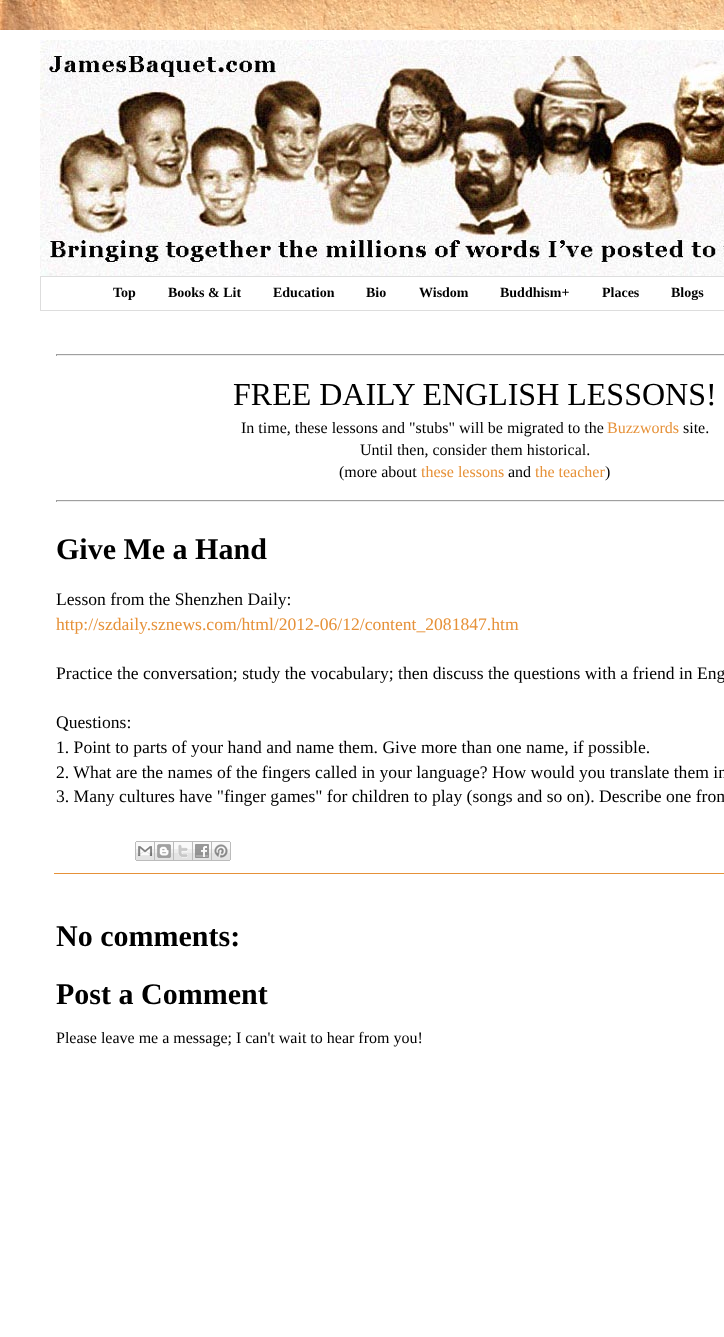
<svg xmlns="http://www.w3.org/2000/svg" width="724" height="1337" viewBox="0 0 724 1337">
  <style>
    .t1 { font: bold 14px Liberation Serif; fill: #000; }
    .t2 { font: 32px Liberation Serif; fill: #000; }
    .t3 { font: 16px Liberation Serif; fill: #000; }
    .t4 { font: 16px Liberation Serif; fill: #e69138; }
    .t5 { font: bold 30px Liberation Serif; fill: #000; }
    .t6 { font: 17.6px Liberation Serif; fill: #000; }
    .t7 { font: 17.6px Liberation Serif; fill: #e69138; }
  </style>
  <rect width="100%" height="100%" fill="#fff"/>
  <image x="0" y="0" width="724" height="30" href="images/1.png"/>
  <image x="40" y="40" width="684" height="236" href="images/2.png"/>
  <rect x="40.5" y="276.5" width="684" height="34" fill="none" stroke="#ddd"/>
  <text x="113" y="297" class="t1">Top</text>
  <text x="168" y="297" class="t1">Books &amp; Lit</text>
  <text x="273" y="297" class="t1">Education</text>
  <text x="366" y="297" class="t1">Bio</text>
  <text x="419" y="297" class="t1">Wisdom</text>
  <text x="500" y="297" class="t1">Buddhism+</text>
  <text x="602" y="297" class="t1">Places</text>
  <text x="671" y="297" class="t1">Blogs</text>
  <rect x="56" y="354" width="668" height="1" fill="#9f9f9f"/>
  <rect x="56" y="355" width="668" height="1" fill="#eee"/>
  <rect x="56" y="354" width="1" height="2" fill="#9f9f9f"/>
  <text x="233" y="405" class="t2">FREE DAILY ENGLISH LESSONS!</text>
  <text x="241" y="433" class="t3">In time, these lessons and "stubs" will be migrated to the</text>
  <text x="607" y="433" class="t4">Buzzwords</text>
  <text x="683" y="433" class="t3">site.</text>
  <text x="360" y="455" class="t3">Until then, consider them historical.</text>
  <text x="339" y="477" class="t3">(more about</text>
  <text x="421" y="477" class="t4">these lessons</text>
  <text x="508" y="477" class="t3">and</text>
  <text x="535" y="477" class="t4">the teacher</text>
  <text x="605" y="477" class="t3">)</text>
  <rect x="56" y="500" width="668" height="1" fill="#9f9f9f"/>
  <rect x="56" y="501" width="668" height="1" fill="#eee"/>
  <rect x="56" y="500" width="1" height="2" fill="#9f9f9f"/>
  <text x="56" y="559" class="t5">Give Me a Hand</text>
  <text x="56" y="605" class="t6">Lesson from the Shenzhen Daily:</text>
  <text x="56" y="630" class="t7">http://szdaily.sznews.com/html/2012-06/12/content_2081847.htm</text>
  <text x="56" y="679" class="t6">Practice the conversation; study the vocabulary; then discuss the questions with a friend in Eng</text>
  <text x="56" y="728" class="t6">Questions:</text>
  <text x="56" y="753" class="t6">1. Point to parts of your hand and name them. Give more than one name, if possible.</text>
  <text x="56" y="778" class="t6">2. What are the names of the fingers called in your language? How would you translate them in</text>
  <text x="56" y="802" class="t6">3. Many cultures have "finger games" for children to play (songs and so on). Describe one from</text>
  <rect x="54" y="873" width="670" height="1" fill="#e69138"/>
  <image x="135" y="841" width="20" height="20" href="images/3.png"/>
  <image x="155" y="841" width="19" height="20" href="images/4.png"/>
  <image x="174" y="841" width="19" height="20" href="images/5.png"/>
  <image x="193" y="841" width="19" height="20" href="images/6.png"/>
  <image x="212" y="841" width="19" height="20" href="images/7.png"/>
  <text x="56" y="946" class="t5">No comments:</text>
  <text x="56" y="1004" class="t5">Post a Comment</text>
  <text x="56" y="1043" class="t3">Please leave me a message; I can't wait to hear from you!</text>
</svg>
